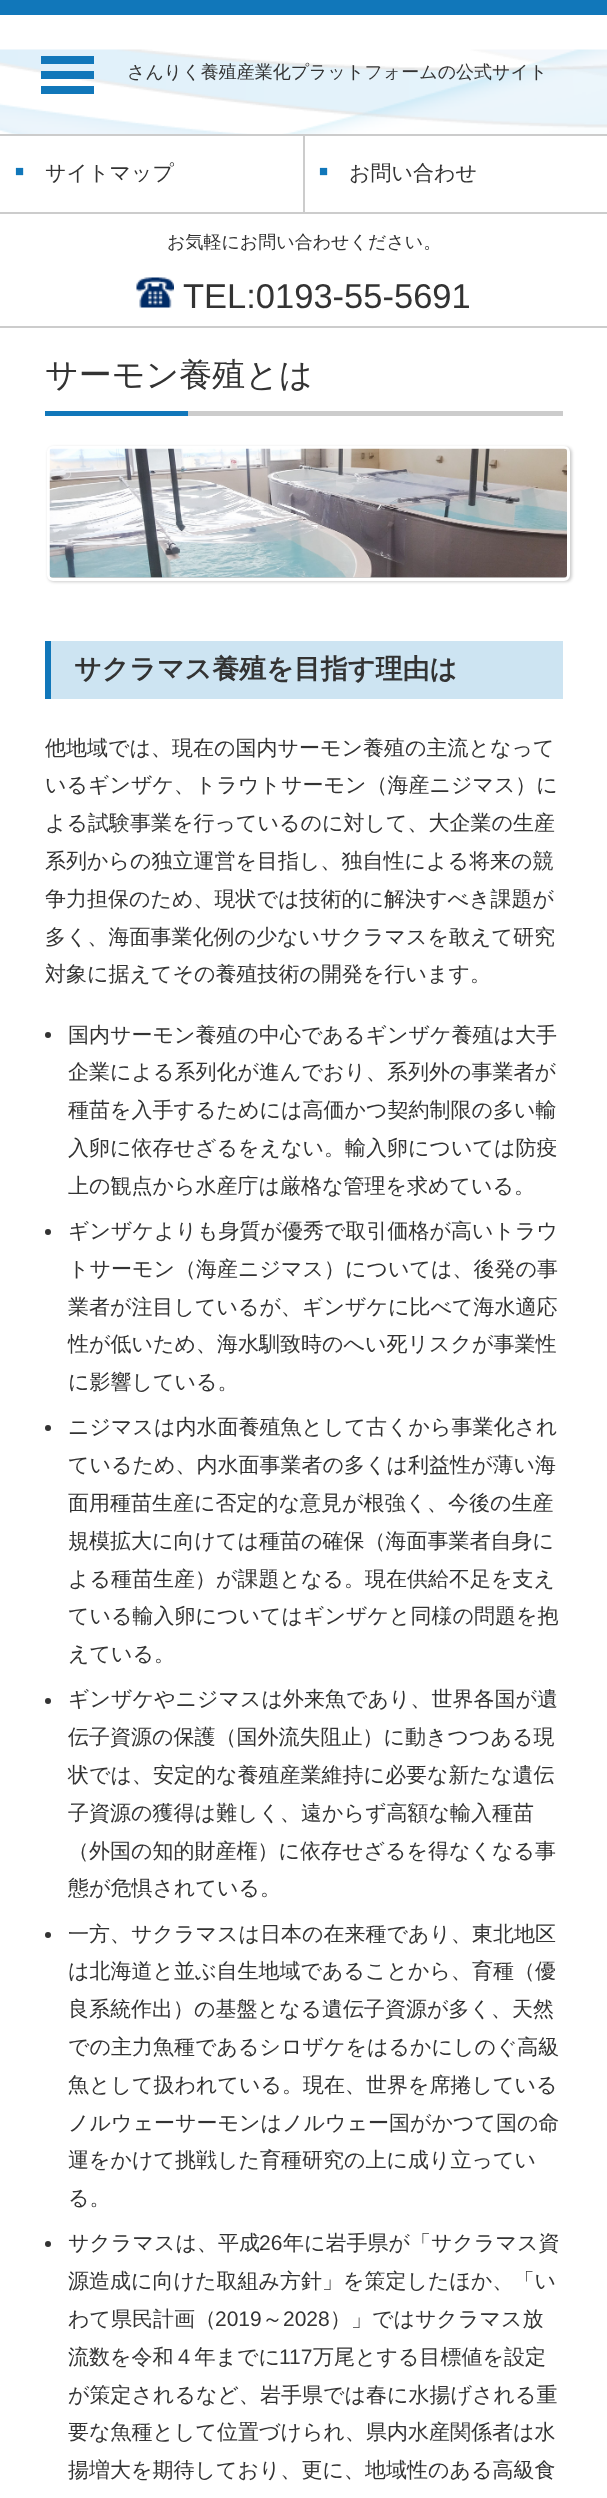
<svg xmlns="http://www.w3.org/2000/svg" width="607" height="2498" viewBox="0 0 607 2498">
  <style>
    .t1 { font: 500 18px WenQuanYi Zen Hei; fill: #333; }
    .t2 { font: 15px Liberation Sans; fill: #1177ba; }
    .t3 { font: 500 21px WenQuanYi Zen Hei; fill: #333; }
    .t4 { font: 34.5px Liberation Sans; fill: #333; }
    .t5 { font: 500 33px WenQuanYi Zen Hei; fill: #333; }
    .t6 { font: bold 27px WenQuanYi Zen Hei; fill: #333; }
    .t7 { font: 21px Liberation Sans; fill: #333; }
  </style>
  <rect width="100%" height="100%" fill="#fff"/>
  <image x="0" y="49" width="607" height="85" href="images/1.png"/>
  <rect x="0" y="0" width="607" height="15" fill="#1177ba"/>
  <path d="M41 94H94V86H41ZM41 56V64H94V56ZM41 79H94V71H41Z" fill="#1177ba"/>
  <rect x="0" y="134" width="607" height="2" fill="#ccc"/>
  <text x="127" y="78" class="t1">さんりく養殖産業化プラットフォームの公式サイト</text>
  <rect x="0" y="212" width="607" height="2" fill="#ccc"/>
  <rect x="303" y="135" width="2" height="77" fill="#ccc"/>
  <text x="15" y="176" class="t2">■</text>
  <text x="45" y="180" class="t3">サイトマップ</text>
  <text x="319" y="176" class="t2">■</text>
  <text x="349" y="180" class="t3">お問い合わせ</text>
  <text x="167" y="248" class="t1">お気軽にお問い合わせください。</text>
  <image x="136" y="277" width="38" height="31" href="images/2.png"/>
  <text x="183" y="308" class="t4">TEL:0193-55-5691</text>
  <rect x="0" y="326" width="607" height="2" fill="#ccc"/>
  <rect x="188" y="411" width="375" height="5" fill="#ccc"/>
  <text x="45" y="386" class="t5">サーモン養殖とは</text>
  <rect x="45" y="411" width="143" height="5" fill="#1177ba"/>
  <rect x="48" y="447" width="524" height="135" rx="6" fill="#00000033" filter="blur(1.5px)"/>
  <rect x="48.5" y="447.5" width="520" height="132" rx="4.5" fill="none" stroke="#fff" stroke-width="3"/>
  <image x="49" y="448" width="518" height="130" href="images/3.png"/>
  <rect x="51" y="641" width="512" height="58" fill="#cde4f2"/>
  <rect x="45" y="641" width="6" height="58" fill="#1177ba"/>
  <text x="74" y="678" class="t6">サクラマス養殖を目指す理由は</text>
  <text x="45" y="755" class="t3">他地域では、現在の国内サーモン養殖の主流となって</text>
  <text x="45" y="792" class="t3">いるギンザケ、トラウトサーモン（海産ニジマス）に</text>
  <text x="45" y="830" class="t3">よる試験事業を行っているのに対して、大企業の生産</text>
  <text x="45" y="868" class="t3">系列からの独立運営を目指し、独自性による将来の競</text>
  <text x="45" y="906" class="t3">争力担保のため、現状では技術的に解決すべき課題が</text>
  <text x="45" y="944" class="t3">多く、海面事業化例の少ないサクラマスを敢えて研究</text>
  <text x="45" y="981" class="t3">対象に据えてその養殖技術の開発を行います。</text>
  <circle cx="48" cy="1035" r="3" fill="#333"/>
  <text x="68" y="1042" class="t3">国内サーモン養殖の中心であるギンザケ養殖は大手</text>
  <text x="68" y="1079" class="t3">企業による系列化が進んでおり、系列外の事業者が</text>
  <text x="68" y="1117" class="t3">種苗を入手するためには高価かつ契約制限の多い輸</text>
  <text x="68" y="1155" class="t3">入卵に依存せざるをえない。輸入卵については防疫</text>
  <text x="68" y="1193" class="t3">上の観点から水産庁は厳格な管理を求めている。</text>
  <circle cx="48" cy="1232" r="3" fill="#333"/>
  <text x="68" y="1238" class="t3">ギンザケよりも身質が優秀で取引価格が高いトラウ</text>
  <text x="68" y="1276" class="t3">トサーモン（海産ニジマス）については、後発の事</text>
  <text x="68" y="1314" class="t3">業者が注目しているが、ギンザケに比べて海水適応</text>
  <text x="68" y="1351" class="t3">性が低いため、海水馴致時のへい死リスクが事業性</text>
  <text x="68" y="1389" class="t3">に影響している。</text>
  <circle cx="48" cy="1428" r="3" fill="#333"/>
  <text x="68" y="1434" class="t3">ニジマスは内水面養殖魚として古くから事業化され</text>
  <text x="68" y="1472" class="t3">ているため、内水面事業者の多くは利益性が薄い海</text>
  <text x="68" y="1510" class="t3">面用種苗生産に否定的な意見が根強く、今後の生産</text>
  <text x="68" y="1548" class="t3">規模拡大に向けては種苗の確保（海面事業者自身に</text>
  <text x="68" y="1586" class="t3">よる種苗生産）が課題となる。現在供給不足を支え</text>
  <text x="68" y="1623" class="t3">ている輸入卵についてはギンザケと同様の問題を抱</text>
  <text x="68" y="1661" class="t3">えている。</text>
  <circle cx="48" cy="1701" r="3" fill="#333"/>
  <text x="68" y="1706" class="t3">ギンザケやニジマスは外来魚であり、世界各国が遺</text>
  <text x="68" y="1744" class="t3">伝子資源の保護（国外流失阻止）に動きつつある現</text>
  <text x="68" y="1782" class="t3">状では、安定的な養殖産業維持に必要な新たな遺伝</text>
  <text x="68" y="1820" class="t3">子資源の獲得は難しく、遠からず高額な輸入種苗</text>
  <text x="68" y="1858" class="t3">（外国の知的財産権）に依存せざるを得なくなる事</text>
  <text x="68" y="1895" class="t3">態が危惧されている。</text>
  <circle cx="48" cy="1935" r="3" fill="#333"/>
  <text x="68" y="1941" class="t3">一方、サクラマスは日本の在来種であり、東北地区</text>
  <text x="68" y="1978" class="t3">は北海道と並ぶ自生地域であることから、育種（優</text>
  <text x="68" y="2016" class="t3">良系統作出）の基盤となる遺伝子資源が多く、天然</text>
  <text x="68" y="2054" class="t3">での主力魚種であるシロザケをはるかにしのぐ高級</text>
  <text x="68" y="2092" class="t3">魚として扱われている。現在、世界を席捲している</text>
  <text x="68" y="2130" class="t3">ノルウェーサーモンはノルウェー国がかつて国の命</text>
  <text x="68" y="2167" class="t3">運をかけて挑戦した育種研究の上に成り立ってい</text>
  <text x="68" y="2205" class="t3">る。</text>
  <circle cx="48" cy="2244" r="3" fill="#333"/>
  <text x="68" y="2250" class="t3">サクラマスは、平成</text>
  <text x="259" y="2250" class="t7">26</text>
  <text x="283" y="2250" class="t3">年に岩手県が「サクラマス資</text>
  <text x="68" y="2288" class="t3">源造成に向けた取組み方針」を策定したほか、「い</text>
  <text x="68" y="2326" class="t3">わて県民計画（</text>
  <text x="215" y="2326" class="t7">2019</text>
  <text x="262" y="2326" class="t3">～</text>
  <text x="283" y="2326" class="t7">2028</text>
  <text x="330" y="2326" class="t3">）」ではサクラマス放</text>
  <text x="68" y="2364" class="t3">流数を令和４年までに</text>
  <text x="279" y="2364" class="t7">117</text>
  <text x="313" y="2364" class="t3">万尾とする目標値を設定</text>
  <text x="68" y="2402" class="t3">が策定されるなど、岩手県では春に水揚げされる重</text>
  <text x="68" y="2439" class="t3">要な魚種として位置づけられ、県内水産関係者は水</text>
  <text x="68" y="2477" class="t3">揚増大を期待しており、更に、地域性のある高級食</text>
</svg>
